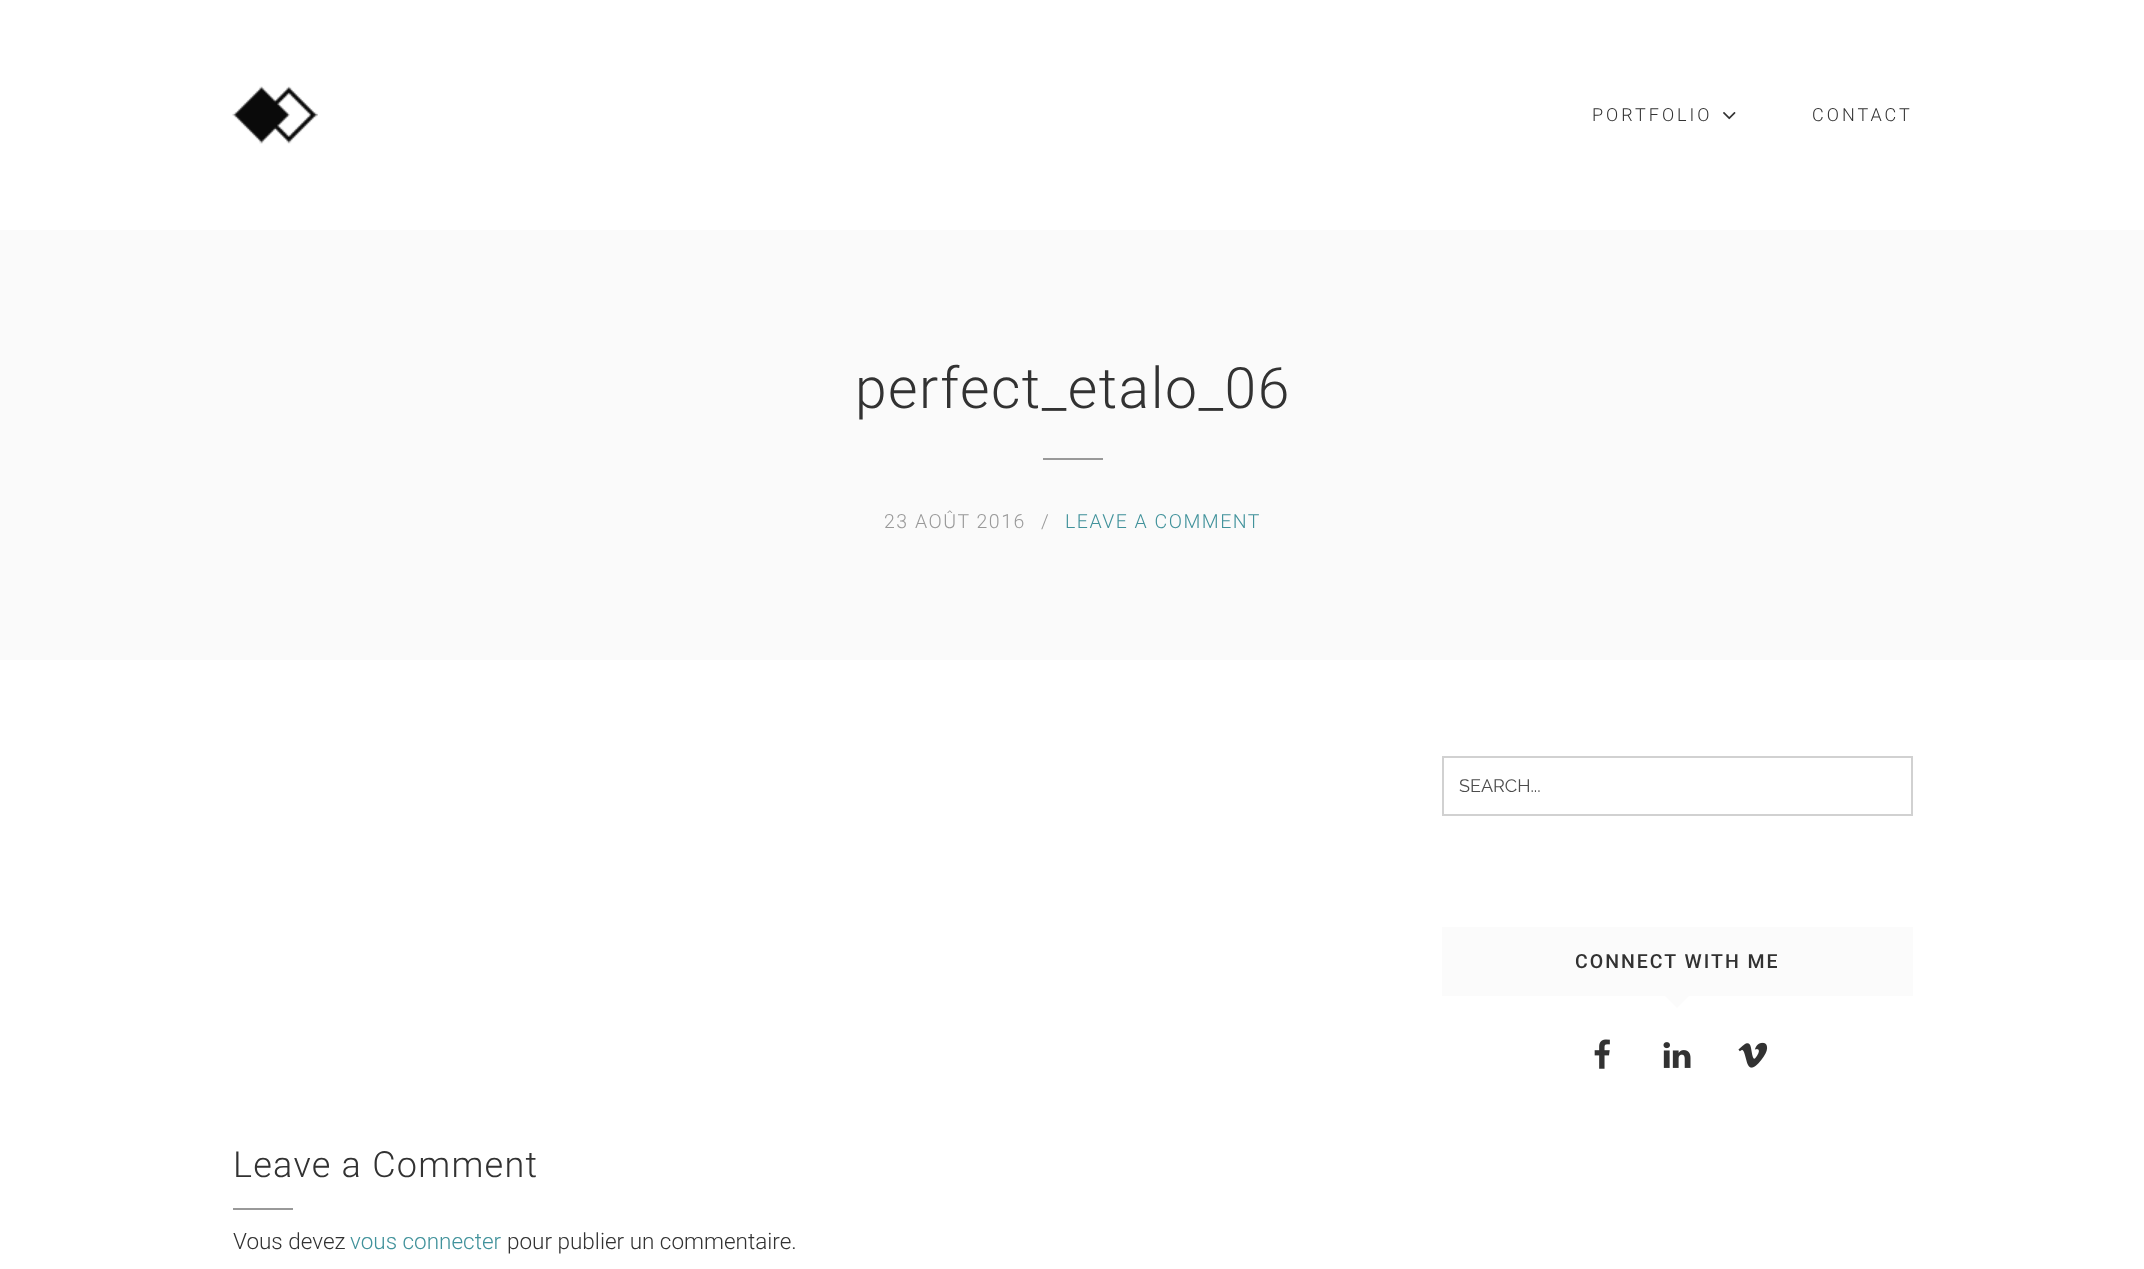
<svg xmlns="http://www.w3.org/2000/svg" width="2144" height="1269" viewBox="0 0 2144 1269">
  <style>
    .t1 { font: 300 18px Roboto; letter-spacing: 3px; fill: #323232; }
    .t2 { font: 300 57px Roboto; letter-spacing: 1.5px; fill: #323232; }
    .t3 { font: 300 19.5px Roboto; letter-spacing: 1.5px; fill: #999; }
    .t4 { font: 300 19.5px Roboto; letter-spacing: 1.5px; fill: #41929b; }
    .t5 { font: 18px Raleway; fill: #4c4c4c; }
    .t6 { font: 500 19.5px Roboto; letter-spacing: 2px; fill: #323232; }
    .t7 { font: 300 36px Roboto; letter-spacing: 1.25px; fill: #323232; }
    .t8 { font: 300 22.5px Roboto; fill: #323232; }
    .t9 { font: 300 22.5px Roboto; fill: #41929b; }
  </style>
  <rect width="100%" height="100%" fill="#fff"/>
  <image x="232" y="86" width="86" height="58" href="images/1.png"/>
  <text x="1592" y="121" class="t1">PORTFOLIO</text>
  <image x="1723" y="112" width="13" height="8" href="images/2.png"/>
  <text x="1812" y="121" class="t1">CONTACT</text>
  <rect x="0" y="230" width="2144" height="430" fill="#fafafa"/>
  <text x="855" y="408" class="t2">perfect_etalo_06</text>
  <rect x="1043" y="458" width="60" height="2" fill="#999"/>
  <text x="884" y="528" class="t3">23 AOÛT 2016</text>
  <text x="1041" y="528" class="t3">/</text>
  <text x="1065" y="528" class="t4">LEAVE A COMMENT</text>
  <rect x="1443" y="757" width="469" height="58" fill="none" stroke="#d1d1d1" stroke-width="2"/>
  <text x="1459" y="792" class="t5">SEARCH...</text>
  <rect x="1442" y="927" width="471" height="69" fill="#fbfbfb"/>
  <text x="1575" y="968" class="t6">CONNECT WITH ME</text>
  <path d="M1665 996H1689L1677 1008Z" fill="#fbfbfb"/>
  <image x="1594" y="1039" width="16" height="30" href="images/3.png"/>
  <image x="1663" y="1042" width="28" height="26" href="images/4.png"/>
  <image x="1738" y="1042" width="30" height="26" href="images/5.png"/>
  <text x="233" y="1177" class="t7">Leave a Comment</text>
  <rect x="233" y="1208" width="60" height="2" fill="#999"/>
  <text x="233" y="1249" class="t8">Vous devez</text>
  <text x="350" y="1249" class="t9">vous connecter</text>
  <text x="507" y="1249" class="t8">pour publier un commentaire.</text>
</svg>
